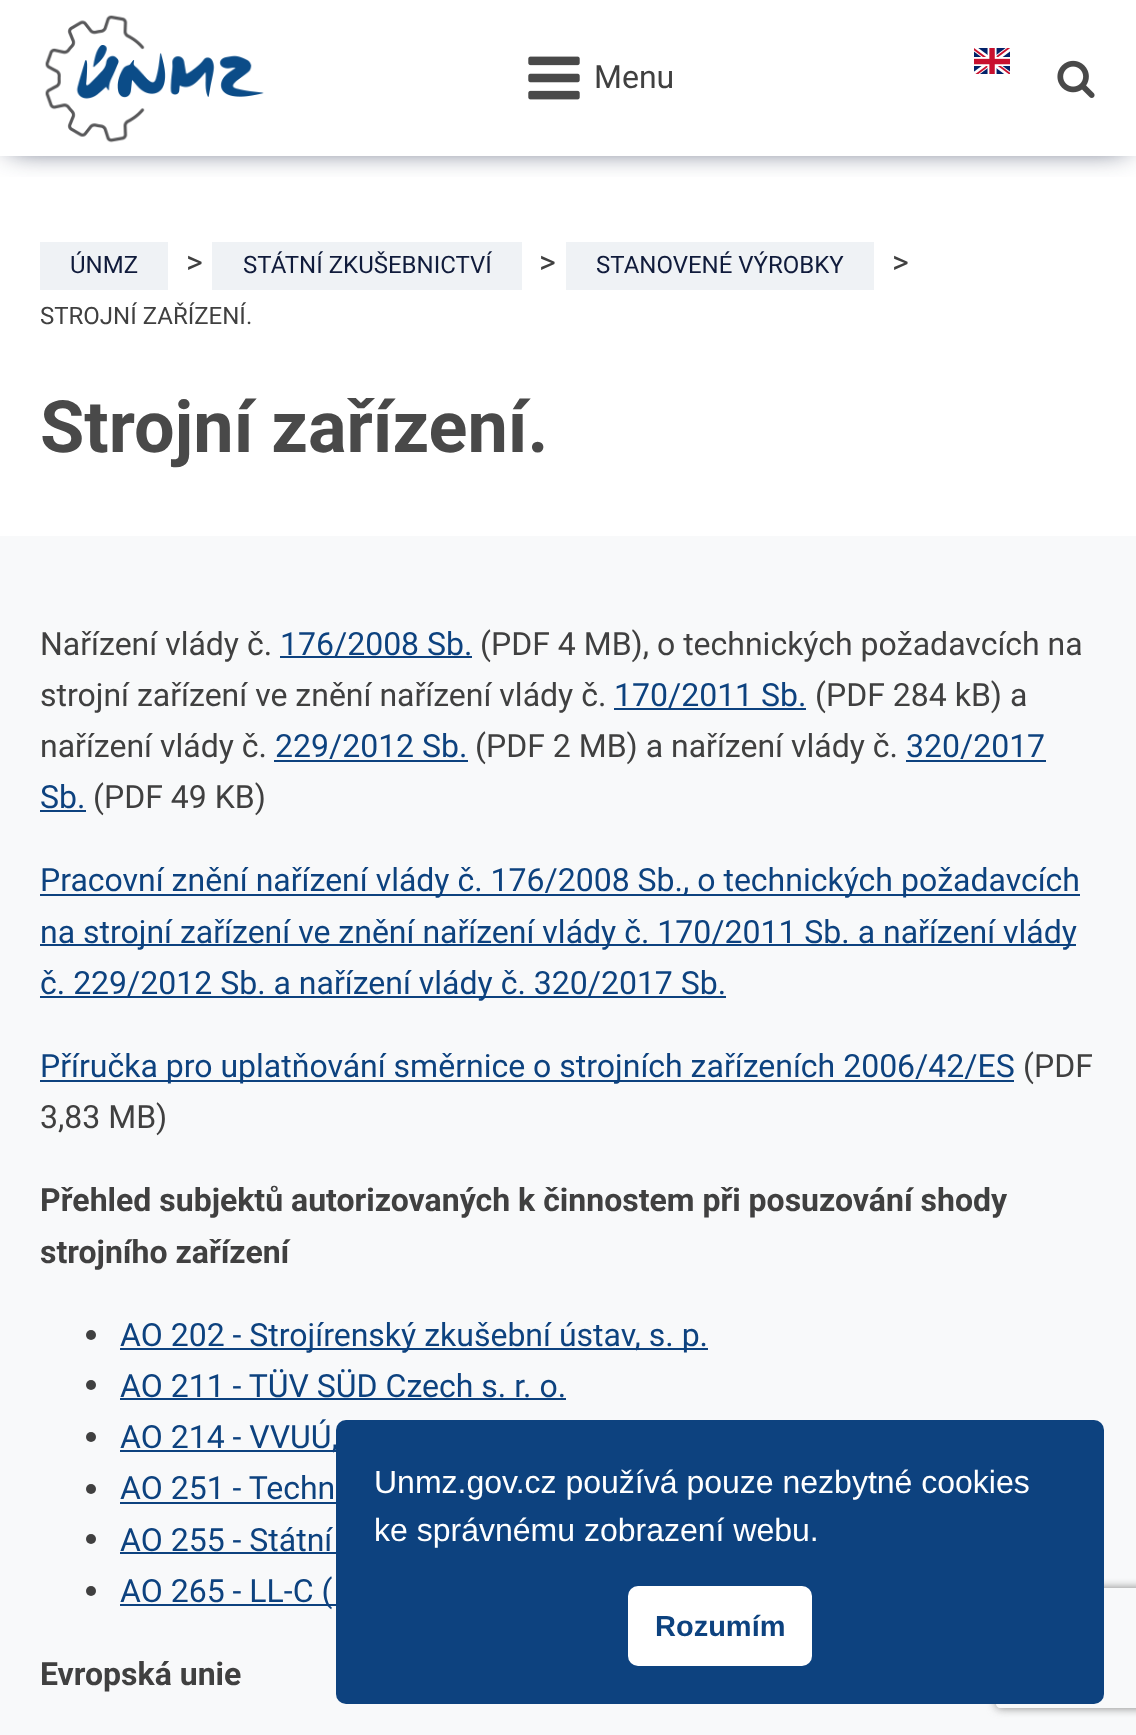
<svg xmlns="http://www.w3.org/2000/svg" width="1136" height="1735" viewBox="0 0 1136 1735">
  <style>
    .t1 { font: 32px Roboto; fill: #404040; }
    .t2 { font: 24px Roboto; fill: #101b3b; }
    .t3 { font: 24px Roboto; fill: #404040; }
    .t4 { font: bold 72px Roboto; fill: #494949; }
    .t5 { font: 32px Roboto; fill: #0d427f; }
    .t6 { font: bold 32px Roboto; fill: #404040; }
    .t7 { font: 32px Liberation Sans; fill: #fff; }
    .t8 { font: bold 29px Liberation Sans; fill: #0d427f; }
  </style>
  <defs>
    <clipPath id="clip1"><rect x="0" y="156" width="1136" height="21"/></clipPath>
    <clipPath id="clip2"><path d="M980 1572H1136V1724H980ZM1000 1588H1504C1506 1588 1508 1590 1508 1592V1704C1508 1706 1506 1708 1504 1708H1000C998 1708 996 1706 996 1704V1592C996 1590 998 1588 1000 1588Z" clip-rule="evenodd"/></clipPath>
  </defs>
  <rect width="100%" height="100%" fill="#fff"/>
  <g clip-path="url(#clip1)">
    <rect x="10" y="10" width="1116" height="136" fill="#101b3b" filter="blur(15px)"/>
  </g>
  <image x="45" y="15" width="219" height="128" href="images/1.png"/>
  <image x="528" y="56" width="52" height="44" href="images/2.png"/>
  <text x="594" y="88" class="t1">Menu</text>
  <image x="974" y="48" width="36" height="26" href="images/3.png"/>
  <image x="1057" y="60" width="38" height="38" href="images/4.png"/>
  <rect x="40" y="242" width="128" height="48" fill="#eff2f5"/>
  <text x="70" y="273" class="t2">ÚNMZ</text>
  <text x="186" y="273" class="t1">&gt;</text>
  <rect x="212" y="242" width="310" height="48" fill="#eff2f5"/>
  <text x="243" y="273" class="t2">STÁTNÍ ZKUŠEBNICTVÍ</text>
  <text x="539" y="273" class="t1">&gt;</text>
  <rect x="566" y="242" width="308" height="48" fill="#eff2f5"/>
  <text x="596" y="273" class="t2">STANOVENÉ VÝROBKY</text>
  <text x="892" y="273" class="t1">&gt;</text>
  <text x="40" y="324" class="t3">STROJNÍ ZAŘÍZENÍ.</text>
  <text x="40" y="452" class="t4">Strojní zařízení.</text>
  <rect x="0" y="536" width="1136" height="1199" fill="#f8f9fa"/>
  <text x="40" y="655" class="t1">Nařízení vlády č.</text>
  <rect x="280" y="656" width="192" height="2" fill="#0d427f"/>
  <text x="280" y="655" class="t5">176/2008 Sb.</text>
  <text x="480" y="655" class="t1">(PDF 4 MB), o technických požadavcích na</text>
  <text x="40" y="706" class="t1">strojní zařízení ve znění nařízení vlády č.</text>
  <text x="614" y="706" class="t5">170/2011 Sb.</text>
  <rect x="614" y="708" width="192" height="2" fill="#0d427f"/>
  <text x="815" y="706" class="t1">(PDF 284 kB) a</text>
  <text x="40" y="757" class="t1">nařízení vlády č.</text>
  <text x="275" y="757" class="t5">229/2012 Sb.</text>
  <rect x="274" y="760" width="194" height="2" fill="#0d427f"/>
  <text x="475" y="757" class="t1">(PDF 2 MB) a nařízení vlády č.</text>
  <text x="906" y="757" class="t5">320/2017</text>
  <rect x="906" y="760" width="140" height="2" fill="#0d427f"/>
  <text x="40" y="808" class="t5">Sb.</text>
  <rect x="40" y="810" width="46" height="2" fill="#0d427f"/>
  <text x="93" y="808" class="t1">(PDF 49 KB)</text>
  <rect x="40" y="894" width="1040" height="2" fill="#0d427f"/>
  <text x="40" y="891" class="t5">Pracovní znění nařízení vlády č. 176/2008 Sb., o technických požadavcích</text>
  <rect x="40" y="944" width="1036" height="2" fill="#0d427f"/>
  <text x="40" y="943" class="t5">na strojní zařízení ve znění nařízení vlády č. 170/2011 Sb. a nařízení vlády</text>
  <rect x="40" y="996" width="686" height="2" fill="#0d427f"/>
  <text x="40" y="994" class="t5">č. 229/2012 Sb. a nařízení vlády č. 320/2017 Sb.</text>
  <rect x="40" y="1080" width="974" height="2" fill="#0d427f"/>
  <text x="40" y="1077" class="t5">Příručka pro uplatňování směrnice o strojních zařízeních 2006/42/ES</text>
  <text x="1023" y="1077" class="t1">(PDF</text>
  <text x="40" y="1128" class="t1">3,83 MB)</text>
  <text x="40" y="1211" class="t6">Přehled subjektů autorizovaných k činnostem při posuzování shody</text>
  <text x="40" y="1263" class="t6">strojního zařízení</text>
  <circle cx="91" cy="1335" r="5" fill="#404040"/>
  <rect x="120" y="1348" width="588" height="2" fill="#0d427f"/>
  <text x="120" y="1346" class="t5">AO 202 - Strojírenský zkušební ústav, s. p.</text>
  <circle cx="91" cy="1385" r="5" fill="#404040"/>
  <text x="120" y="1397" class="t5">AO 211 - TÜV SÜD Czech s. r. o.</text>
  <rect x="120" y="1398" width="446" height="2" fill="#0d427f"/>
  <circle cx="91" cy="1437" r="5" fill="#404040"/>
  <rect x="120" y="1450" width="216" height="2" fill="#0d427f"/>
  <text x="120" y="1448" class="t5">AO 214 - VVUÚ,</text>
  <circle cx="91" cy="1489" r="5" fill="#404040"/>
  <text x="120" y="1499" class="t5">AO 251 - Techn</text>
  <rect x="120" y="1502" width="216" height="2" fill="#0d427f"/>
  <circle cx="91" cy="1539" r="5" fill="#404040"/>
  <text x="120" y="1551" class="t5">AO 255 - Státní</text>
  <rect x="120" y="1552" width="216" height="2" fill="#0d427f"/>
  <circle cx="91" cy="1591" r="5" fill="#404040"/>
  <rect x="120" y="1604" width="216" height="2" fill="#0d427f"/>
  <text x="120" y="1602" class="t5">AO 265 - LL-C (</text>
  <text x="40" y="1685" class="t6">Evropská unie</text>
  <g clip-path="url(#clip2)">
    <rect x="996" y="1588" width="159" height="120" rx="4" fill="#808080" filter="blur(5px)"/>
  </g>
  <rect x="336" y="1420" width="768" height="284" rx="10" fill="#0d427f"/>
  <text x="374" y="1493" class="t7">Unmz.gov.cz používá pouze nezbytné cookies</text>
  <text x="374" y="1541" class="t7">ke správnému zobrazení webu.</text>
  <rect x="628" y="1586" width="184" height="80" rx="10" fill="#fff"/>
  <text x="655" y="1636" class="t8">Rozumím</text>
</svg>
